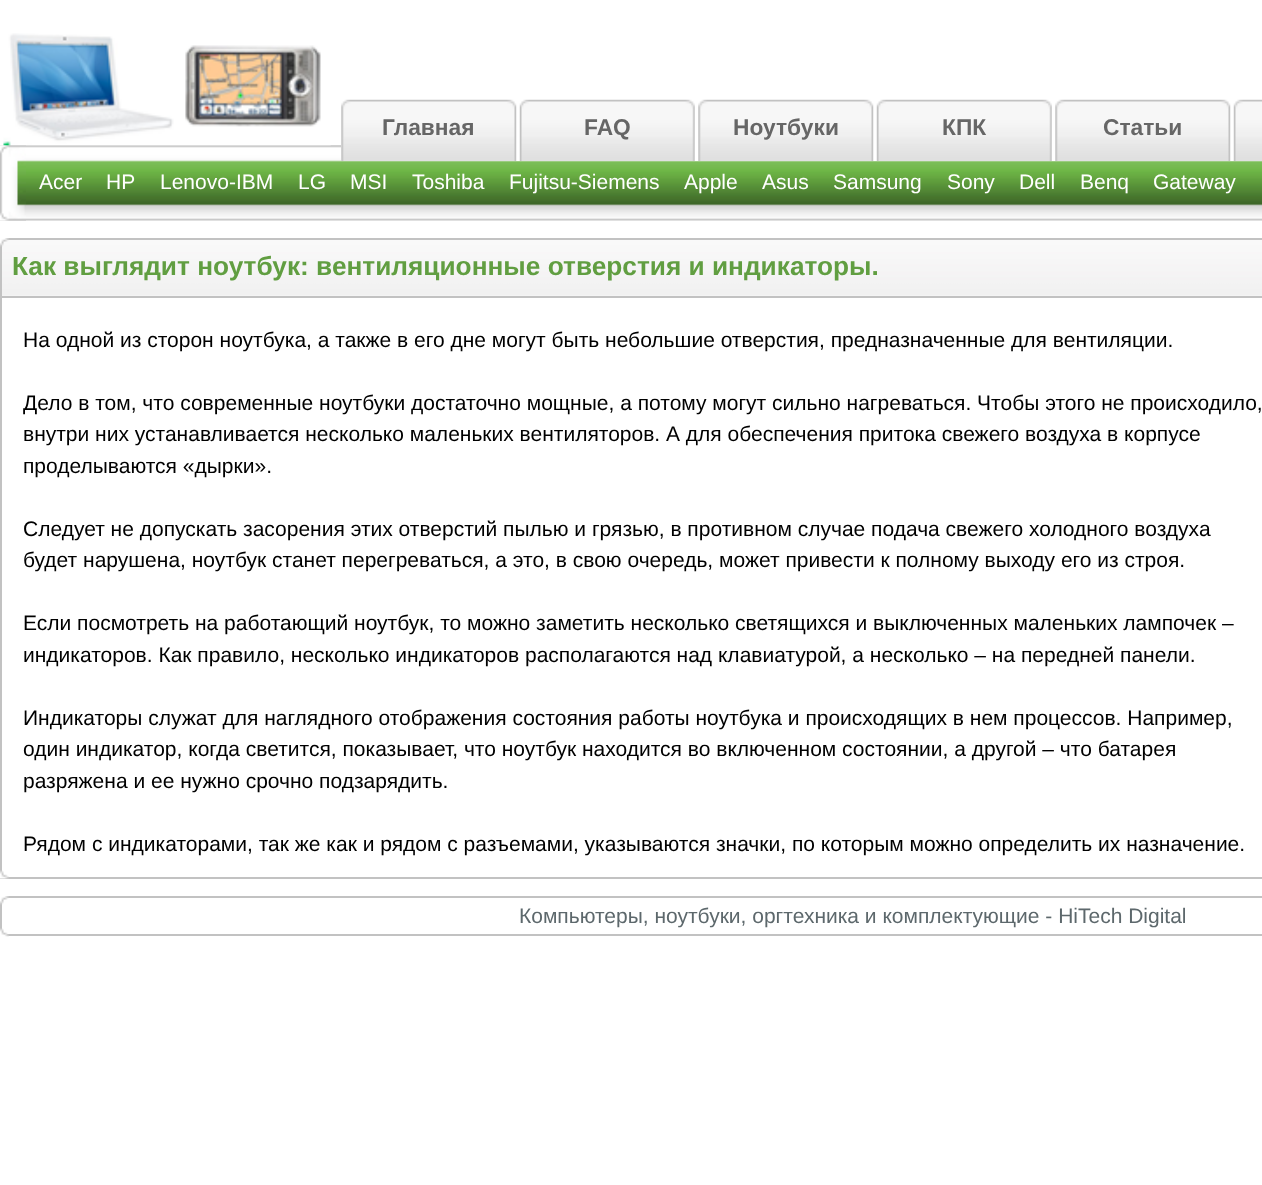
<svg xmlns="http://www.w3.org/2000/svg" width="1262" height="1185" viewBox="0 0 1262 1185">
  <style>
    .t1 { font: bold 22.75px Liberation Sans; fill: #666; }
    .t2 { font: 21px Liberation Sans; fill: #fff; }
    .t3 { font: bold 26.25px Liberation Sans; fill: #619e41; }
    .t4 { font: 21px Liberation Sans; fill: #000; }
    .t5 { font: 21px Liberation Sans; fill: #5d686c; }
  </style>
  <rect width="100%" height="100%" fill="#fff"/>
  <image x="0" y="145" width="1262" height="76" href="images/7.png"/>
  <image x="0" y="145" width="26" height="76" href="images/8.png"/>
  <image x="3" y="33" width="328" height="113" href="images/1.png"/>
  <rect x="341" y="145" width="893" height="16" fill="#fff"/>
  <image x="341" y="99" width="176" height="62" href="images/2.png"/>
  <text x="382" y="135" class="t1">Главная</text>
  <image x="519" y="99" width="176" height="62" href="images/3.png"/>
  <text x="584" y="135" class="t1">FAQ</text>
  <image x="698" y="99" width="176" height="62" href="images/2.png"/>
  <text x="733" y="135" class="t1">Ноутбуки</text>
  <image x="876" y="99" width="176" height="62" href="images/4.png"/>
  <text x="942" y="135" class="t1">КПК</text>
  <image x="1055" y="99" width="176" height="62" href="images/5.png"/>
  <text x="1103" y="135" class="t1">Статьи</text>
  <image x="1233" y="99" width="29" height="62" href="images/6.png"/>
  <text x="39" y="189" class="t2">Acer</text>
  <text x="106" y="189" class="t2">HP</text>
  <text x="160" y="189" class="t2">Lenovo-IBM</text>
  <text x="298" y="189" class="t2">LG</text>
  <text x="350" y="189" class="t2">MSI</text>
  <text x="412" y="189" class="t2">Toshiba</text>
  <text x="509" y="189" class="t2">Fujitsu-Siemens</text>
  <text x="684" y="189" class="t2">Apple</text>
  <text x="762" y="189" class="t2">Asus</text>
  <text x="833" y="189" class="t2">Samsung</text>
  <text x="947" y="189" class="t2">Sony</text>
  <text x="1019" y="189" class="t2">Dell</text>
  <text x="1080" y="189" class="t2">Benq</text>
  <text x="1153" y="189" class="t2">Gateway</text>
  <image x="2" y="240" width="1260" height="56" href="images/9.png"/>
  <rect x="1" y="239" width="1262" height="58" fill="none" stroke="#c2c2c2" stroke-width="2"/>
  <image x="0" y="238" width="9" height="9" href="images/10.png"/>
  <text x="12" y="275" class="t3">Как выглядит ноутбук: вентиляционные отверстия и индикаторы.</text>
  <rect x="0" y="877" width="1262" height="2" fill="#c2c2c2"/>
  <rect x="0" y="298" width="2" height="581" fill="#c2c2c2"/>
  <text x="23" y="347" class="t4">На одной из сторон ноутбука, а также в его дне могут быть небольшие отверстия, предназначенные для вентиляции.</text>
  <text x="23" y="410" class="t4">Дело в том, что современные ноутбуки достаточно мощные, а потому могут сильно нагреваться. Чтобы этого не происходило,</text>
  <text x="23" y="441" class="t4">внутри них устанавливается несколько маленьких вентиляторов. А для обеспечения притока свежего воздуха в корпусе</text>
  <text x="23" y="473" class="t4">проделываются «дырки».</text>
  <text x="23" y="536" class="t4">Следует не допускать засорения этих отверстий пылью и грязью, в противном случае подача свежего холодного воздуха</text>
  <text x="23" y="567" class="t4">будет нарушена, ноутбук станет перегреваться, а это, в свою очередь, может привести к полному выходу его из строя.</text>
  <text x="23" y="630" class="t4">Если посмотреть на работающий ноутбук, то можно заметить несколько светящихся и выключенных маленьких лампочек –</text>
  <text x="23" y="662" class="t4">индикаторов. Как правило, несколько индикаторов располагаются над клавиатурой, а несколько – на передней панели.</text>
  <text x="23" y="725" class="t4">Индикаторы служат для наглядного отображения состояния работы ноутбука и происходящих в нем процессов. Например,</text>
  <text x="23" y="756" class="t4">один индикатор, когда светится, показывает, что ноутбук находится во включенном состоянии, а другой – что батарея</text>
  <text x="23" y="788" class="t4">разряжена и ее нужно срочно подзарядить.</text>
  <text x="23" y="851" class="t4">Рядом с индикаторами, так же как и рядом с разъемами, указываются значки, по которым можно определить их назначение.</text>
  <image x="0" y="870" width="9" height="9" href="images/11.png"/>
  <rect x="1" y="897" width="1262" height="38" fill="none" stroke="#c2c2c2" stroke-width="2"/>
  <image x="0" y="896" width="9" height="9" href="images/12.png"/>
  <text x="519" y="923" class="t5">Компьютеры, ноутбуки, оргтехника и комплектующие - HiTech Digital</text>
  <image x="0" y="928" width="9" height="9" href="images/13.png"/>
</svg>
